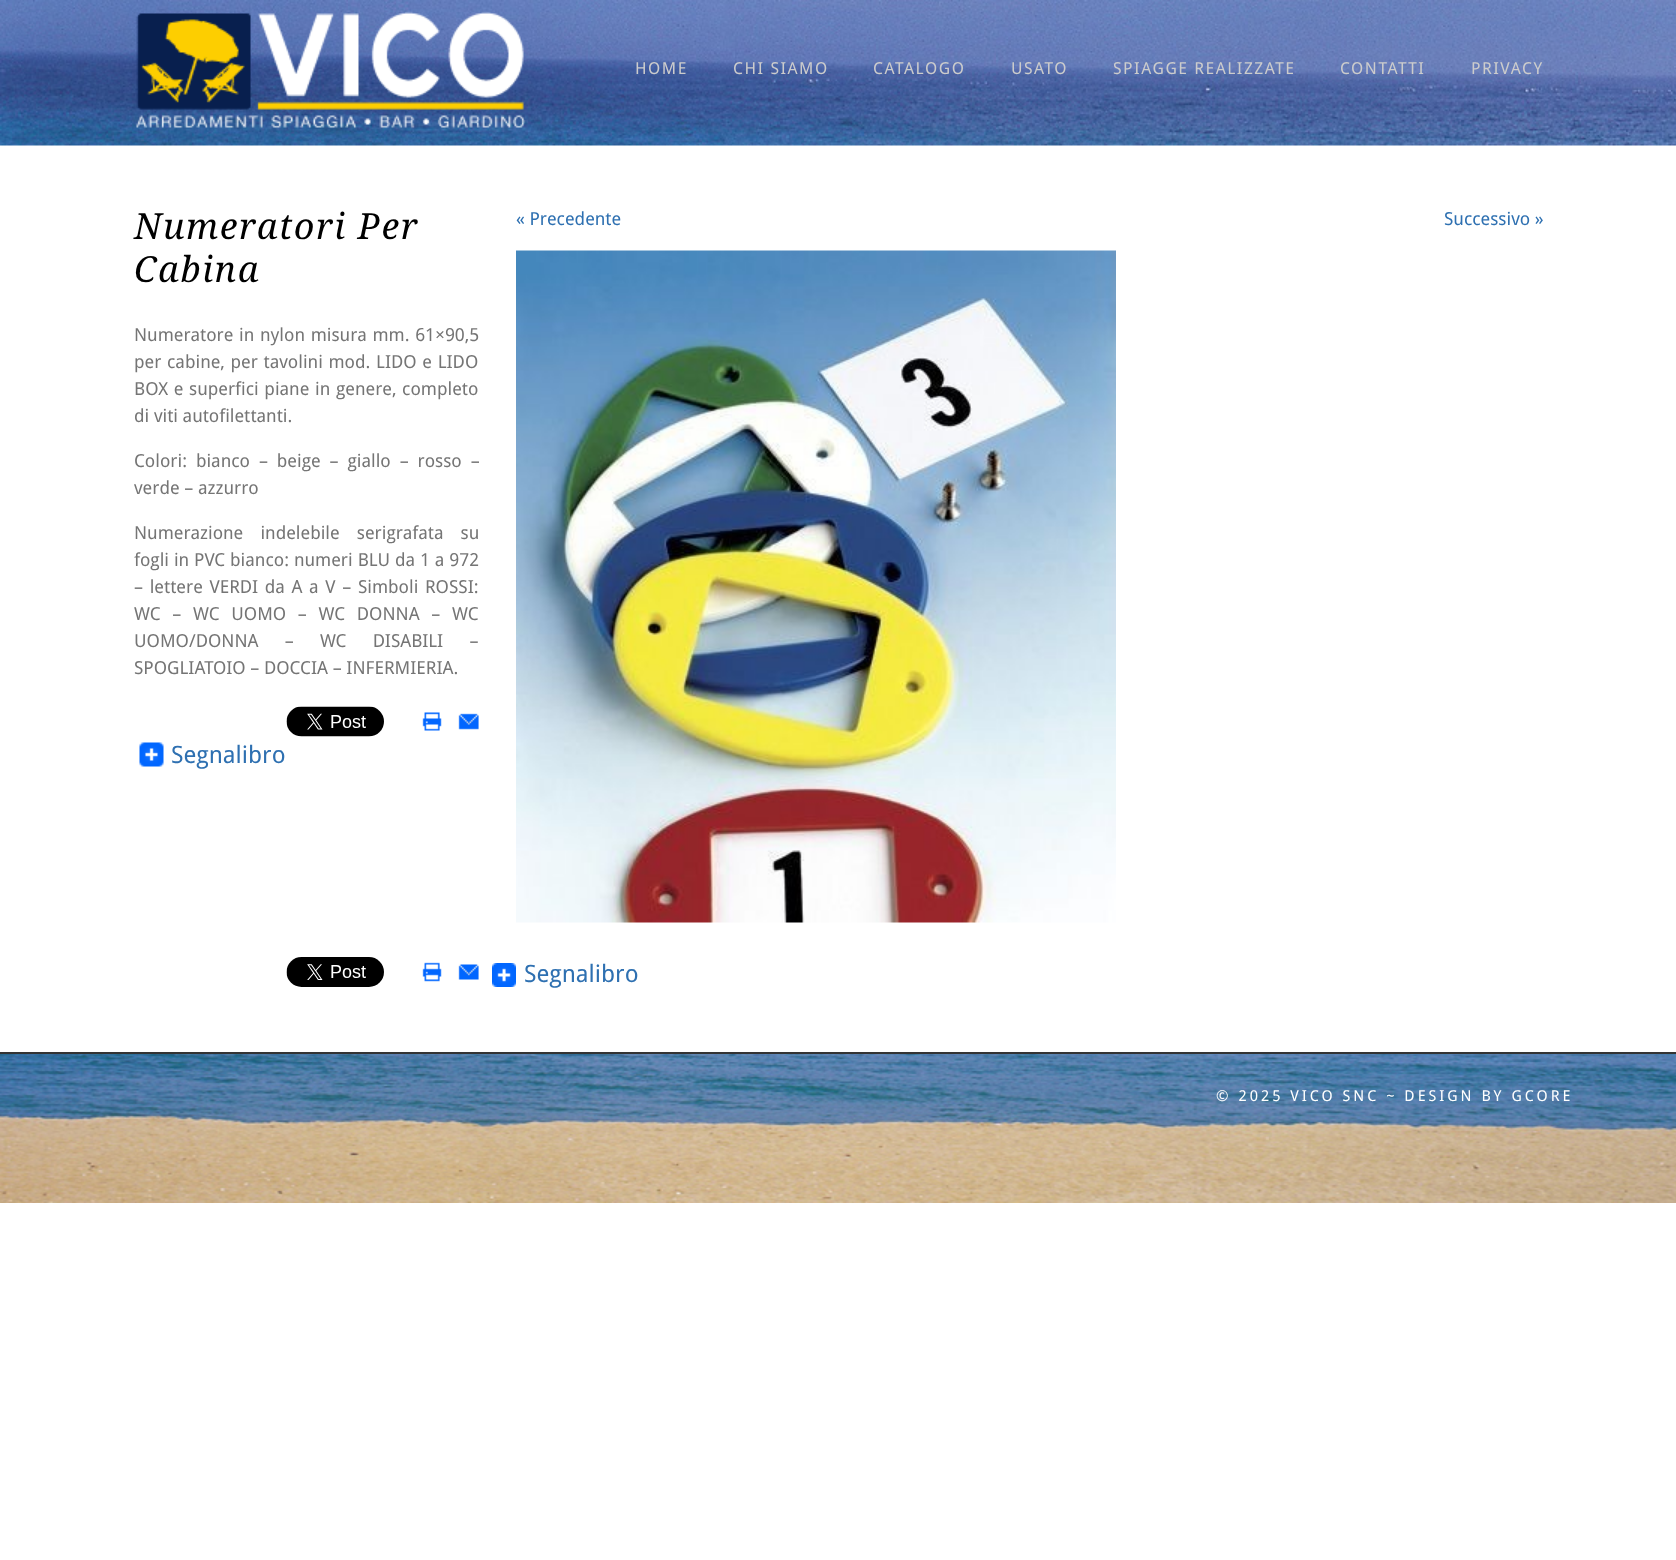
<svg xmlns="http://www.w3.org/2000/svg" width="1676" height="1560" viewBox="0 0 1676 1560">
  <style>
    .t1 { font: 16.5px Droid Sans; letter-spacing: 1.5px; fill: #ccc; }
    .t2 { font: italic 36px Droid Serif; letter-spacing: 1.5px; fill: #000; }
    .t3 { font: 18px Droid Sans; fill: #757575; }
    .t4 { font: 24px Droid Sans; fill: #2e70b1; }
    .t5 { font: 18px Droid Sans; fill: #2e70b1; }
    .t6 { font: 15px Droid Sans; letter-spacing: 3px; fill: #fff; }
  </style>
  <rect width="100%" height="100%" fill="#fff"/>
  <image x="0" y="0" width="1676" height="146" href="images/1.png"/>
  <image x="136" y="11" width="390" height="117" href="images/2.png"/>
  <text x="635" y="74" class="t1">HOME</text>
  <text x="733" y="74" class="t1">CHI SIAMO</text>
  <text x="873" y="74" class="t1">CATALOGO</text>
  <text x="1011" y="74" class="t1">USATO</text>
  <text x="1113" y="74" class="t1">SPIAGGE REALIZZATE</text>
  <text x="1340" y="74" class="t1">CONTATTI</text>
  <text x="1471" y="74" class="t1">PRIVACY</text>
  <text x="134" y="239" class="t2">Numeratori Per</text>
  <text x="134" y="282" class="t2">Cabina</text>
  <text x="134" y="341" word-spacing="1" class="t3">Numeratore in nylon misura mm. 61×90,5</text>
  <text x="134" y="368" word-spacing="1" class="t3">per cabine, per tavolini mod. LIDO e LIDO</text>
  <text x="134" y="395" word-spacing="1" class="t3">BOX e superfici piane in genere, completo</text>
  <text x="134" y="422" class="t3">di viti autofilettanti.</text>
  <text x="134" y="467" word-spacing="4.25" class="t3">Colori: bianco – beige – giallo – rosso –</text>
  <text x="134" y="494" class="t3">verde – azzurro</text>
  <text x="134" y="539" word-spacing="12.5" class="t3">Numerazione indelebile serigrafata su</text>
  <text x="134" y="566" word-spacing="0.25" class="t3">fogli in PVC bianco: numeri BLU da 1 a 972</text>
  <text x="134" y="593" word-spacing="2" class="t3">– lettere VERDI da A a V – Simboli ROSSI:</text>
  <text x="134" y="620" word-spacing="7" class="t3">WC – WC UOMO – WC DONNA – WC</text>
  <text x="134" y="647" word-spacing="21.5" class="t3">UOMO/DONNA – WC DISABILI –</text>
  <text x="134" y="674" class="t3">SPOGLIATOIO – DOCCIA – INFERMIERIA.</text>
  <image x="286" y="706" width="98" height="31" href="images/3.png"/>
  <image x="422" y="712" width="20" height="19" href="images/4.png"/>
  <image x="458" y="713" width="21" height="17" href="images/5.png"/>
  <image x="139" y="742" width="25" height="25" href="images/6.png"/>
  <text x="171" y="763" class="t4">Segnalibro</text>
  <text x="516" y="225" class="t5">« Precedente</text>
  <text x="1444" y="225" class="t5">Successivo »</text>
  <image x="516" y="250" width="600" height="673" href="images/7.png"/>
  <image x="286" y="957" width="98" height="30" href="images/8.png"/>
  <image x="422" y="962" width="20" height="20" href="images/9.png"/>
  <image x="458" y="964" width="21" height="16" href="images/10.png"/>
  <image x="492" y="963" width="24" height="24" href="images/11.png"/>
  <text x="524" y="982" class="t4">Segnalibro</text>
  <image x="0" y="1054" width="1676" height="149" href="images/12.png"/>
  <rect x="0" y="1052" width="1676" height="2" fill="#333"/>
  <text x="1216" y="1101" class="t6">© 2025 VICO SNC ~ DESIGN BY GCORE</text>
</svg>
